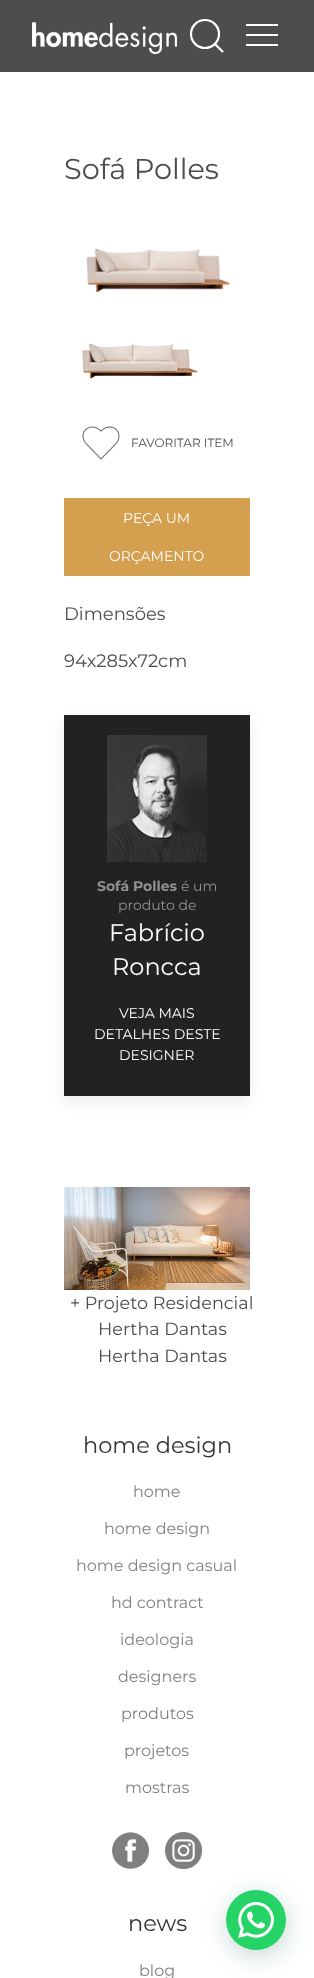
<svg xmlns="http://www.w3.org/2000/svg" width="314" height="1978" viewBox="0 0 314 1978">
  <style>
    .t1 { font: 28.75px Montserrat; fill: #4c4c4c; }
    .t2 { font: 12px Montserrat; fill: #4c4c4c; }
    .t3 { font: 14px Montserrat; fill: #fff; }
    .t4 { font: 18px Montserrat; fill: #4c4c4c; }
    .t5 { font: bold 14px Montserrat; fill: #919191; }
    .t6 { font: 14px Montserrat; fill: #919191; }
    .t7 { font: 24px Montserrat; fill: #fff; }
    .t8 { font: 17.6px Montserrat; fill: #4c4c4c; }
    .t9 { font: 22.5px Montserrat; fill: #343434; }
    .t10 { font: 16px Montserrat; fill: #828282; }
  </style>
  <rect width="100%" height="100%" fill="#fff"/>
  <rect x="0" y="0" width="314" height="72" fill="#4d4d4d"/>
  <image x="32" y="22" width="145" height="32" href="images/1.png"/>
  <circle cx="205" cy="34" r="14" fill="none" stroke="#fff" stroke-width="2.2"/>
  <path d="M215 44L223 52Z" fill="none" stroke="#fff" stroke-width="2.2"/>
  <rect x="246" y="24" width="32" height="2" fill="#fff"/>
  <rect x="246" y="34" width="32" height="2" fill="#fff"/>
  <rect x="246" y="44" width="32" height="2" fill="#fff"/>
  <text x="64" y="179" class="t1">Sofá Polles</text>
  <image x="86" y="248" width="144" height="45" href="images/2.png"/>
  <image x="82" y="343" width="116" height="36" href="images/3.png"/>
  <image x="82" y="426" width="38" height="34" href="images/4.png"/>
  <text x="131" y="447" class="t2">FAVORITAR ITEM</text>
  <rect x="64" y="498" width="186" height="78" fill="#d49f4f"/>
  <text x="123" y="523" class="t3">PEÇA UM</text>
  <text x="109" y="561" class="t3">ORÇAMENTO</text>
  <text x="64" y="620" class="t4">Dimensões</text>
  <text x="64" y="667" class="t4">94x285x72cm</text>
  <rect x="64" y="720" width="186" height="381" fill="#00000014" filter="blur(7.5px)"/>
  <rect x="64" y="715" width="186" height="381" fill="#222"/>
  <image x="107" y="735" width="100" height="127" href="images/5.png"/>
  <text x="97" y="891" class="t5">Sofá Polles</text>
  <text x="181" y="891" class="t6">é um</text>
  <text x="118" y="910" class="t6">produto de</text>
  <text x="109" y="941" class="t7">Fabrício</text>
  <text x="112" y="975" class="t7">Roncca</text>
  <text x="119" y="1018" class="t3">VEJA MAIS</text>
  <text x="94" y="1039" class="t3">DETALHES DESTE</text>
  <text x="119" y="1060" class="t3">DESIGNER</text>
  <image x="64" y="1187" width="186" height="103" href="images/6.png"/>
  <text x="70" y="1309" class="t8">+ Projeto Residencial</text>
  <text x="98" y="1335" class="t8">Hertha Dantas</text>
  <text x="98" y="1362" class="t8">Hertha Dantas</text>
  <text x="83" y="1453" class="t9">home design</text>
  <text x="133" y="1497" class="t10">home</text>
  <text x="104" y="1534" class="t10">home design</text>
  <text x="76" y="1571" class="t10">home design casual</text>
  <text x="111" y="1608" class="t10">hd contract</text>
  <text x="120" y="1645" class="t10">ideologia</text>
  <text x="118" y="1682" class="t10">designers</text>
  <text x="121" y="1719" class="t10">produtos</text>
  <text x="124" y="1756" class="t10">projetos</text>
  <text x="125" y="1793" class="t10">mostras</text>
  <image x="112" y="1832" width="37" height="37" href="images/7.png"/>
  <image x="165" y="1832" width="37" height="37" href="images/8.png"/>
  <text x="128" y="1931" class="t9">news</text>
  <text x="139" y="1976" class="t10">blog</text>
  <rect x="227" y="1896" width="60" height="60" rx="30" fill="#075e543d" filter="blur(12px)"/>
  <circle cx="256" cy="1920" r="30" fill="#25d366"/>
  <image x="238" y="1902" width="36" height="36" href="images/9.png"/>
</svg>
